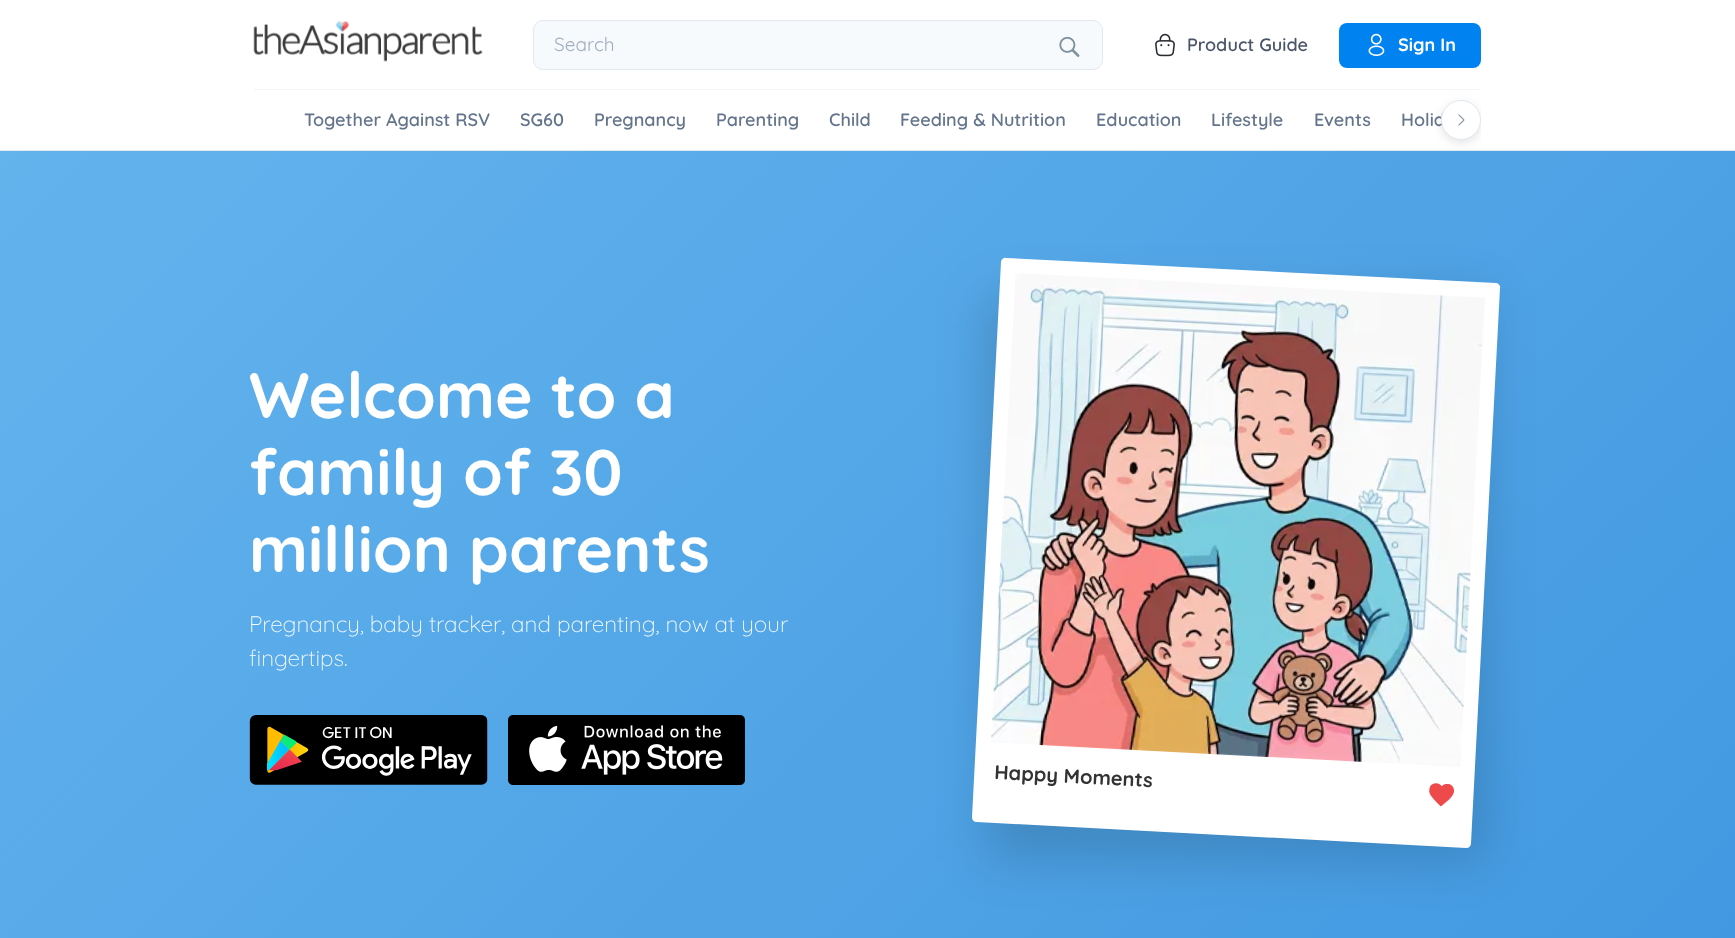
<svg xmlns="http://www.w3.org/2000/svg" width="1735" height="938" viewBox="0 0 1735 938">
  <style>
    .t1 { font: 19px Quicksand; fill: #a0aec0; }
    .t2 { font: 600 18px Quicksand; fill: #4a5568; }
    .t3 { font: bold 18px Quicksand; fill: #fff; }
    .t4 { font: 600 18px Quicksand; fill: #64748b; }
    .t5 { font: bold 64px Quicksand; fill: #fff; }
    .t6 { font: 300 22.5px Quicksand; fill: #f7fbfe; }
    .t7 { font: bold 20px Quicksand; fill: #333; }
  </style>
  <defs>
    <linearGradient id="g1" gradientUnits="userSpaceOnUse" x1="232" y1="-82" x2="1503" y2="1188"><stop offset="0" stop-color="#63b3ed"/><stop offset="1" stop-color="#4299e1"/></linearGradient>
    <clipPath id="clip1"><rect x="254" y="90" width="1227" height="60"/></clipPath>
  </defs>
  <rect width="100%" height="100%" fill="#fff"/>
  <rect x="0" y="150" width="1735" height="1" fill="#e2e8f0"/>
  <rect x="254" y="89" width="1227" height="1" fill="#f1f5f9"/>
  <image x="253" y="21" width="230" height="41" href="images/1.png"/>
  <rect x="533.5" y="20.5" width="569" height="49" rx="9.5" fill="#f7fafc" stroke="#e2e8f0"/>
  <text x="554" y="51" class="t1">Search</text>
  <image x="1059" y="36" width="21" height="21" href="images/2.png"/>
  <image x="1155" y="33" width="20" height="24" href="images/3.png"/>
  <text x="1187" y="51" class="t2">Product Guide</text>
  <rect x="1339" y="23" width="142" height="45" rx="8" fill="#0182f1"/>
  <image x="1368" y="33" width="17" height="23" href="images/4.png"/>
  <text x="1398" y="51" class="t3">Sign In</text>
  <text x="304" y="126" class="t4">Together Against RSV</text>
  <text x="520" y="126" class="t4">SG60</text>
  <text x="594" y="126" class="t4">Pregnancy</text>
  <text x="716" y="126" class="t4">Parenting</text>
  <text x="829" y="126" class="t4">Child</text>
  <text x="900" y="126" class="t4">Feeding &amp; Nutrition</text>
  <text x="1096" y="126" class="t4">Education</text>
  <text x="1211" y="126" class="t4">Lifestyle</text>
  <text x="1314" y="126" class="t4">Events</text>
  <text x="1401" y="126" class="t4">Holid</text>
  <rect x="0" y="151" width="1735" height="787" fill="url(#g1)"/>
  <g clip-path="url(#clip1)">
    <rect x="1441" y="103" width="40" height="40" rx="20" fill="#0000001a" filter="blur(5px)"/>
  </g>
  <circle cx="1461" cy="120" r="19.5" fill="#fff" stroke="#e2e8f0"/>
  <image x="1458" y="114" width="7" height="12" href="images/5.png"/>
  <text x="249" y="418" class="t5">Welcome to a</text>
  <text x="249" y="495" class="t5">family of 30</text>
  <text x="249" y="572" class="t5">million parents</text>
  <text x="249" y="632" class="t6">Pregnancy, baby tracker, and parenting, now at your</text>
  <text x="249" y="666" class="t6">fingertips.</text>
  <image x="249" y="715" width="239" height="70" href="images/6.png"/>
  <image x="508" y="715" width="237" height="70" href="images/7.png"/>
  <rect x="986" y="295" width="500" height="565" rx="5" fill="#00000026" filter="blur(25px)"/>
  <path d="M1006 258L1496 283C1498 283 1501 286 1500 288L1471 843C1471 846 1469 848 1466 848L977 822C974 822 972 820 972 817L1001 262C1001 260 1004 257 1006 258Z" fill="#fff"/>
  <image x="991" y="273" width="494" height="494" href="images/8.png"/>
  <text x="994" y="779" transform="rotate(3 994 779)" class="t7">Happy Moments</text>
  <image x="1429" y="783" width="25" height="24" href="images/9.png"/>
</svg>
